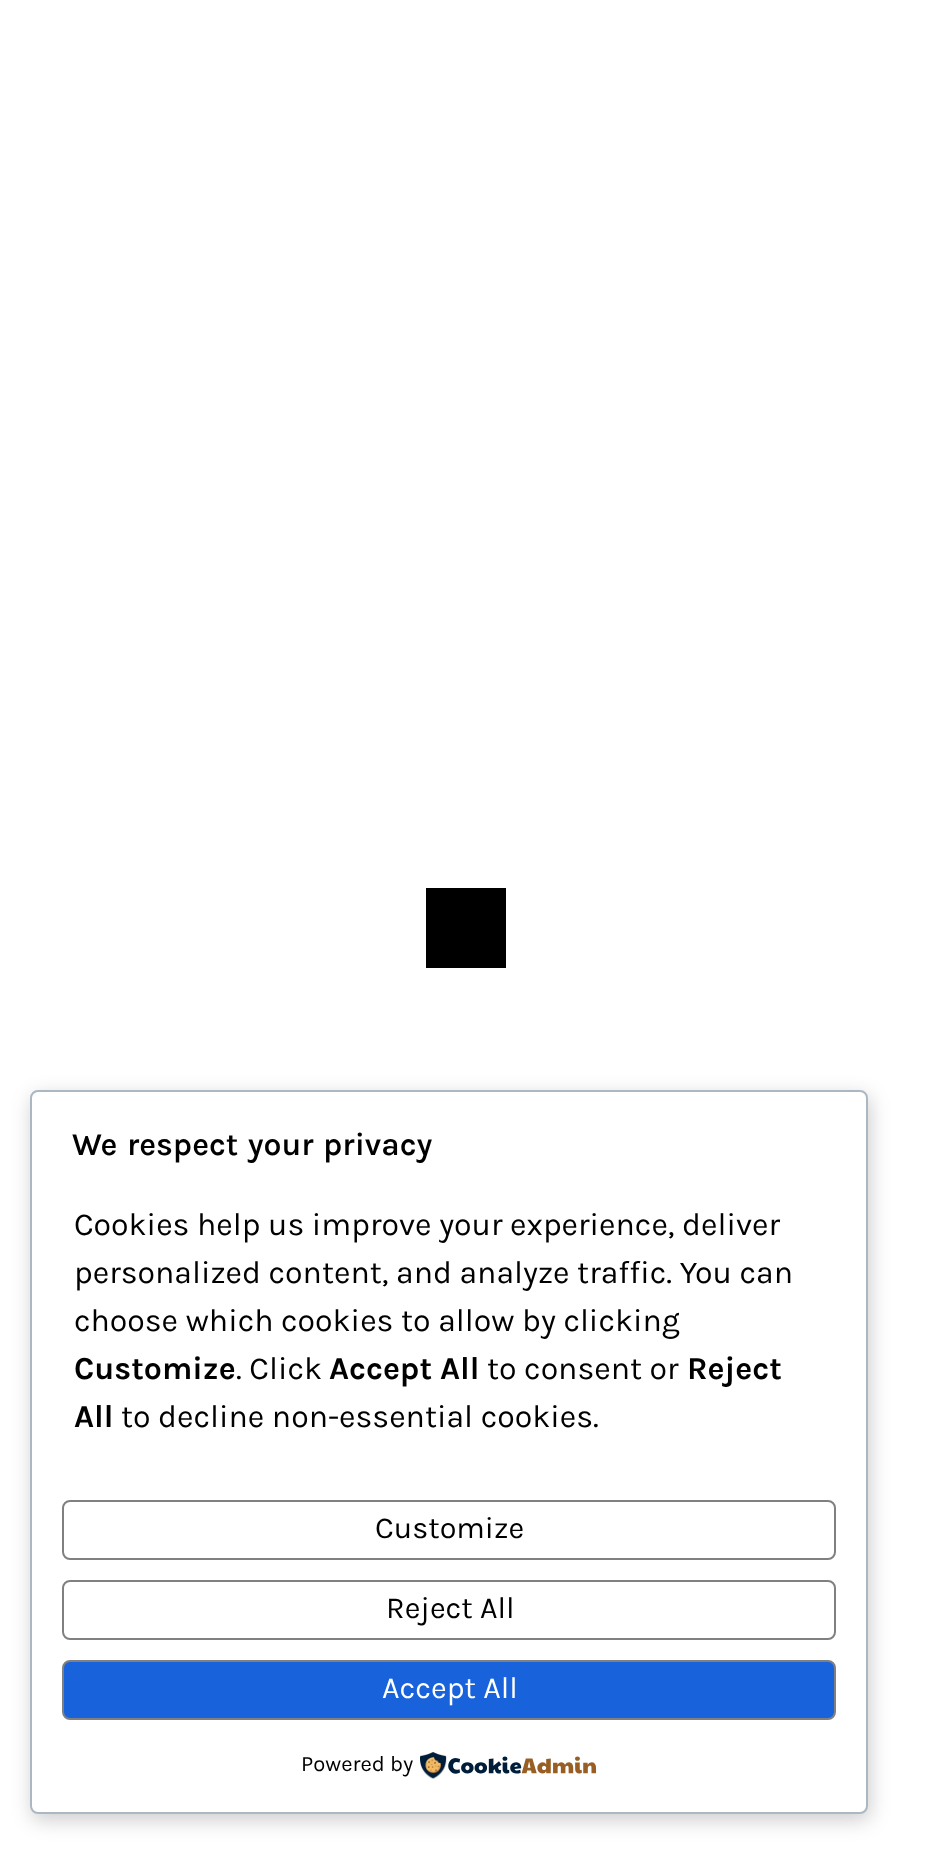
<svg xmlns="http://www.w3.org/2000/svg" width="932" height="1853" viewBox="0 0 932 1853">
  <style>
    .t1 { font: 600 32px Karla; fill: #000; }
    .t2 { font: 32px Karla; fill: #000; }
    .t3 { font: bold 32px Karla; fill: #000; }
    .t4 { font: 30.5px Karla; fill: #000; }
    .t5 { font: 30.5px Karla; fill: #fff; }
    .t6 { font: 22px Karla; fill: #000; }
  </style>
  <rect width="100%" height="100%" fill="#fff"/>
  <rect x="426" y="888" width="80" height="80" fill="#000"/>
  <rect x="32" y="1096" width="838" height="724" rx="8" fill="#00000033" filter="blur(10px)"/>
  <rect x="31" y="1091" width="836" height="722" rx="7" fill="#fff" stroke="#abb8c3" stroke-width="2"/>
  <text x="72" y="1155" word-spacing="1.5" class="t1">We respect your privacy</text>
  <text x="74" y="1235" class="t2">Cookies help us improve your experience, deliver</text>
  <text x="74" y="1283" class="t2">personalized content, and analyze traffic. You can</text>
  <text x="74" y="1331" class="t2">choose which cookies to allow by clicking</text>
  <text x="74" y="1379" class="t3">Customize</text>
  <text x="236" y="1379" class="t2">. Click</text>
  <text x="329" y="1379" class="t3">Accept All</text>
  <text x="487" y="1379" class="t2">to consent or</text>
  <text x="687" y="1379" class="t3">Reject</text>
  <text x="74" y="1427" class="t3">All</text>
  <text x="121" y="1427" class="t2">to decline non-essential cookies.</text>
  <rect x="63" y="1501" width="772" height="58" rx="7" fill="none" stroke="#808080" stroke-width="2"/>
  <text x="375" y="1538" class="t4">Customize</text>
  <rect x="63" y="1581" width="772" height="58" rx="7" fill="none" stroke="#808080" stroke-width="2"/>
  <text x="386" y="1618" class="t4">Reject All</text>
  <rect x="63" y="1661" width="772" height="58" rx="7" fill="#1863dc" stroke="#808080" stroke-width="2"/>
  <text x="382" y="1698" class="t5">Accept All</text>
  <text x="301" y="1771" class="t6">Powered by</text>
  <image x="420" y="1752" width="177" height="27" href="images/1.png"/>
</svg>
